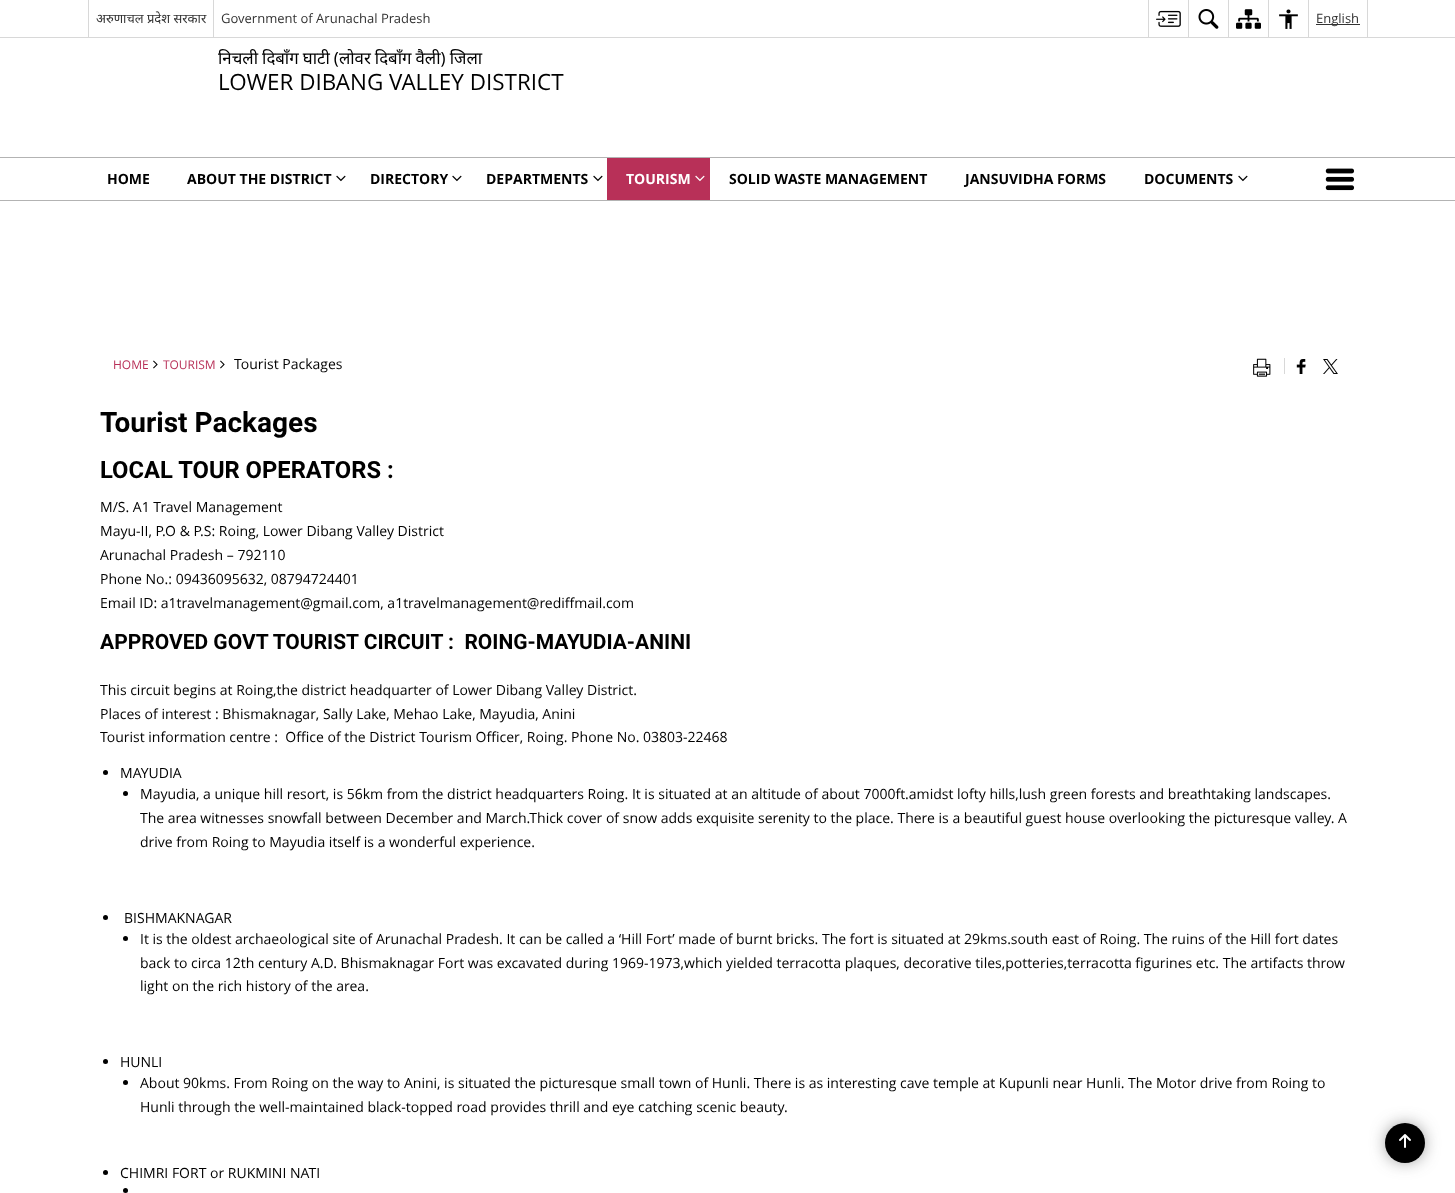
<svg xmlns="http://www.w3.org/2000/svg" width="1455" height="1193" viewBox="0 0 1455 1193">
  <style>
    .t1 { font: 13px Noto Sans; fill: #333; }
    .t2 { font: 13px Open Sans; fill: #333; }
    .t3 { font: 16.75px Noto Sans; fill: #000; }
    .t4 { font: 22.4px Open Sans; fill: #000; }
    .t5 { font: bold 14px Open Sans; fill: #000; }
    .t6 { font: bold 14px Open Sans; fill: #fff; }
    .t7 { font: 12px Open Sans; fill: #b83058; }
    .t8 { font: 14px Open Sans; fill: #000; }
    .t9 { font: bold 28px Roboto; fill: #000; }
    .t10 { font: bold 23.75px Roboto; fill: #000; }
    .t11 { font: bold 21px Roboto; fill: #000; }
  </style>
  <rect width="100%" height="100%" fill="#fff"/>
  <rect x="0" y="37" width="1455" height="1" fill="#d8d8d8"/>
  <rect x="88" y="0" width="1" height="37" fill="#d8d8d8"/>
  <text x="96" y="23" class="t1">अरुणाचल प्रदेश सरकार</text>
  <rect x="213" y="0" width="1" height="37" fill="#d8d8d8"/>
  <text x="221" y="23" class="t2">Government of Arunachal Pradesh</text>
  <rect x="1148" y="0" width="1" height="37" fill="#d8d8d8"/>
  <image x="1156" y="10" width="25" height="17" href="images/1.png"/>
  <rect x="1188" y="0" width="1" height="37" fill="#d8d8d8"/>
  <image x="1198" y="9" width="21" height="20" href="images/2.png"/>
  <rect x="1228" y="0" width="1" height="37" fill="#d8d8d8"/>
  <image x="1236" y="9" width="25" height="20" href="images/3.png"/>
  <rect x="1268" y="0" width="1" height="37" fill="#d8d8d8"/>
  <image x="1279" y="9" width="19" height="20" href="images/4.png"/>
  <rect x="1367" y="0" width="1" height="37" fill="#d8d8d8"/>
  <rect x="1308" y="0" width="1" height="37" fill="#d8d8d8"/>
  <rect x="1316" y="24" width="44" height="1" fill="#333"/>
  <text x="1316" y="23" class="t2">English</text>
  <text x="218" y="64" word-spacing="-0.25" class="t3">निचली दिबाँग घाटी (लोवर दिबाँग वैली) जिला</text>
  <text x="218" y="90" class="t4">LOWER DIBANG VALLEY DISTRICT</text>
  <rect x="0" y="157" width="1455" height="1" fill="#b3b3b3"/>
  <rect x="0" y="200" width="1455" height="1" fill="#b3b3b3"/>
  <text x="107" y="184" class="t5">HOME</text>
  <text x="187" y="184" class="t5">ABOUT THE DISTRICT</text>
  <image x="336" y="175" width="10" height="7" href="images/5.png"/>
  <text x="370" y="184" class="t5">DIRECTORY</text>
  <image x="452" y="175" width="10" height="7" href="images/5.png"/>
  <text x="486" y="184" class="t5">DEPARTMENTS</text>
  <image x="593" y="175" width="10" height="7" href="images/5.png"/>
  <rect x="607" y="158" width="103" height="42" fill="#b83058"/>
  <text x="626" y="184" class="t6">TOURISM</text>
  <image x="695" y="175" width="10" height="7" href="images/6.png"/>
  <text x="729" y="184" class="t5">SOLID WASTE MANAGEMENT</text>
  <text x="965" y="184" class="t5">JANSUVIDHA FORMS</text>
  <text x="1144" y="184" class="t5">DOCUMENTS</text>
  <image x="1238" y="175" width="10" height="7" href="images/5.png"/>
  <image x="1325" y="168" width="30" height="23" href="images/7.png"/>
  <text x="113" y="369" class="t7">HOME</text>
  <image x="153" y="360" width="5" height="9" href="images/8.png"/>
  <text x="163" y="369" class="t7">TOURISM</text>
  <image x="220" y="360" width="5" height="9" href="images/8.png"/>
  <text x="234" y="369" class="t8">Tourist Packages</text>
  <image x="1253" y="358" width="18" height="19" href="images/9.png"/>
  <rect x="1284" y="358" width="1" height="16" fill="#d8d8d8"/>
  <image x="1296" y="359" width="10" height="15" href="images/10.png"/>
  <image x="1323" y="359" width="15" height="15" href="images/11.png"/>
  <text x="100" y="432" class="t9">Tourist Packages</text>
  <text x="100" y="478" class="t10">LOCAL TOUR OPERATORS :</text>
  <text x="100" y="512" class="t8">M/S. A1 Travel Management</text>
  <text x="100" y="536" class="t8">Mayu-II, P.O &amp; P.S: Roing, Lower Dibang Valley District</text>
  <text x="100" y="560" class="t8">Arunachal Pradesh – 792110</text>
  <text x="100" y="584" class="t8">Phone No.: 09436095632, 08794724401</text>
  <text x="100" y="608" class="t8">Email ID: a1travelmanagement@gmail.com, a1travelmanagement@rediffmail.com</text>
  <text x="100" y="649" class="t11" xml:space="preserve">APPROVED GOVT TOURIST CIRCUIT :  ROING-MAYUDIA-ANINI</text>
  <text x="100" y="695" class="t8">This circuit begins at Roing,the district headquarter of Lower Dibang Valley District.</text>
  <text x="100" y="719" class="t8">Places of interest : Bhismaknagar, Sally Lake, Mehao Lake, Mayudia, Anini</text>
  <text x="100" y="742" class="t8" xml:space="preserve">Tourist information centre :  Office of the District Tourism Officer, Roing. Phone No. 03803-22468</text>
  <circle cx="105.5" cy="772.5" r="2.5" fill="#000"/>
  <text x="120" y="778" class="t8">MAYUDIA</text>
  <circle cx="125.5" cy="793.5" r="2.5" fill="#000"/>
  <text x="140" y="799" class="t8">Mayudia, a unique hill resort, is 56km from the district headquarters Roing. It is situated at an altitude of about 7000ft.amidst lofty hills,lush green forests and breathtaking landscapes.</text>
  <text x="140" y="823" class="t8">The area witnesses snowfall between December and March.Thick cover of snow adds exquisite serenity to the place. There is a beautiful guest house overlooking the picturesque valley. A</text>
  <text x="140" y="847" class="t8">drive from Roing to Mayudia itself is a wonderful experience.</text>
  <circle cx="105.5" cy="917.5" r="2.5" fill="#000"/>
  <text x="124" y="923" class="t8">BISHMAKNAGAR</text>
  <circle cx="125.5" cy="938.5" r="2.5" fill="#000"/>
  <text x="140" y="944" class="t8">It is the oldest archaeological site of Arunachal Pradesh. It can be called a ‘Hill Fort’ made of burnt bricks. The fort is situated at 29kms.south east of Roing. The ruins of the Hill fort dates</text>
  <text x="140" y="968" class="t8">back to circa 12th century A.D. Bhismaknagar Fort was excavated during 1969-1973,which yielded terracotta plaques, decorative tiles,potteries,terracotta figurines etc. The artifacts throw</text>
  <text x="140" y="991" class="t8">light on the rich history of the area.</text>
  <circle cx="105.5" cy="1061.5" r="2.5" fill="#000"/>
  <text x="120" y="1067" class="t8">HUNLI</text>
  <circle cx="125.5" cy="1082.5" r="2.5" fill="#000"/>
  <text x="140" y="1088" class="t8">About 90kms. From Roing on the way to Anini, is situated the picturesque small town of Hunli. There is as interesting cave temple at Kupunli near Hunli. The Motor drive from Roing to</text>
  <text x="140" y="1112" class="t8">Hunli through the well-maintained black-topped road provides thrill and eye catching scenic beauty.</text>
  <circle cx="105.5" cy="1172.5" r="2.5" fill="#000"/>
  <text x="120" y="1178" class="t8">CHIMRI FORT or RUKMINI NATI</text>
  <circle cx="125.5" cy="1190.5" r="2.5" fill="#000"/>
  <rect x="1390" y="1128" width="30" height="30" rx="15" fill="#3c3c3c" filter="blur(9.5px)"/>
  <circle cx="1405" cy="1143" r="20" fill="#000"/>
  <image x="1399" y="1134" width="12" height="14" href="images/12.png"/>
</svg>
